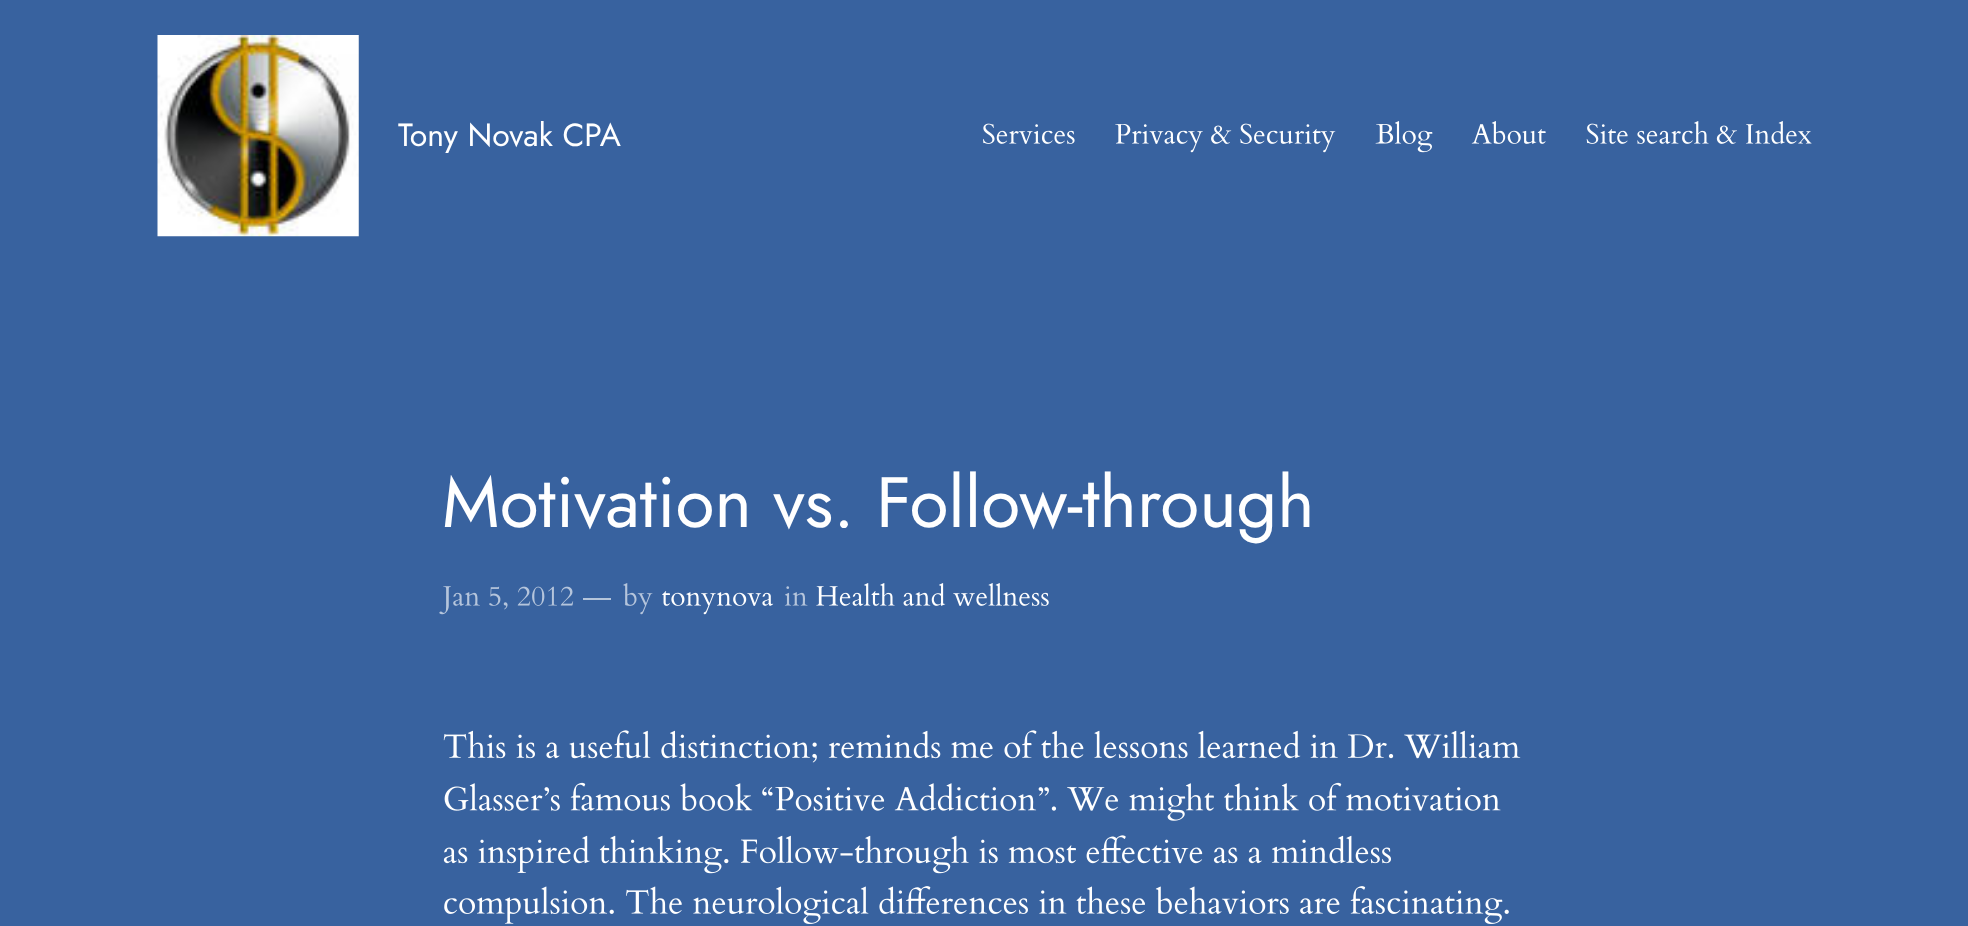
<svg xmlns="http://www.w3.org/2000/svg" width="1968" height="926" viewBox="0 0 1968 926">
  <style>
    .t1 { font: 32px Jost; fill: #fff; }
    .t2 { font: 71.25px Jost; fill: #fff; }
  </style>
  <rect width="100%" height="100%" fill="#38629f"/>
  <image x="157" y="35" width="202" height="202" href="images/1.png"/>
  <text x="398" y="146" class="t1">Tony Novak CPA</text>
  <image x="983" y="123" width="92" height="21" href="images/2.png"/>
  <image x="1115" y="123" width="221" height="30" href="images/3.png"/>
  <image x="1375" y="121" width="58" height="32" href="images/4.png"/>
  <image x="1471" y="121" width="75" height="23" href="images/5.png"/>
  <image x="1586" y="121" width="226" height="23" href="images/6.png"/>
  <text x="442" y="527" class="t2">Motivation vs. Follow-through</text>
  <image x="439" y="586" width="135" height="29" href="images/7.png"/>
  <rect x="583" y="598" width="28" height="2" fill="#b5c5db"/>
  <image x="623" y="583" width="30" height="32" href="images/8.png"/>
  <image x="662" y="591" width="112" height="24" href="images/9.png"/>
  <image x="784" y="586" width="24" height="20" href="images/10.png"/>
  <image x="816" y="583" width="233" height="23" href="images/11.png"/>
  <image x="443" y="730" width="1078" height="33" href="images/12.png"/>
  <image x="444" y="782" width="1057" height="39" href="images/13.png"/>
  <image x="443" y="835" width="948" height="39" href="images/14.png"/>
  <image x="444" y="886" width="1065" height="38" href="images/15.png"/>
</svg>
